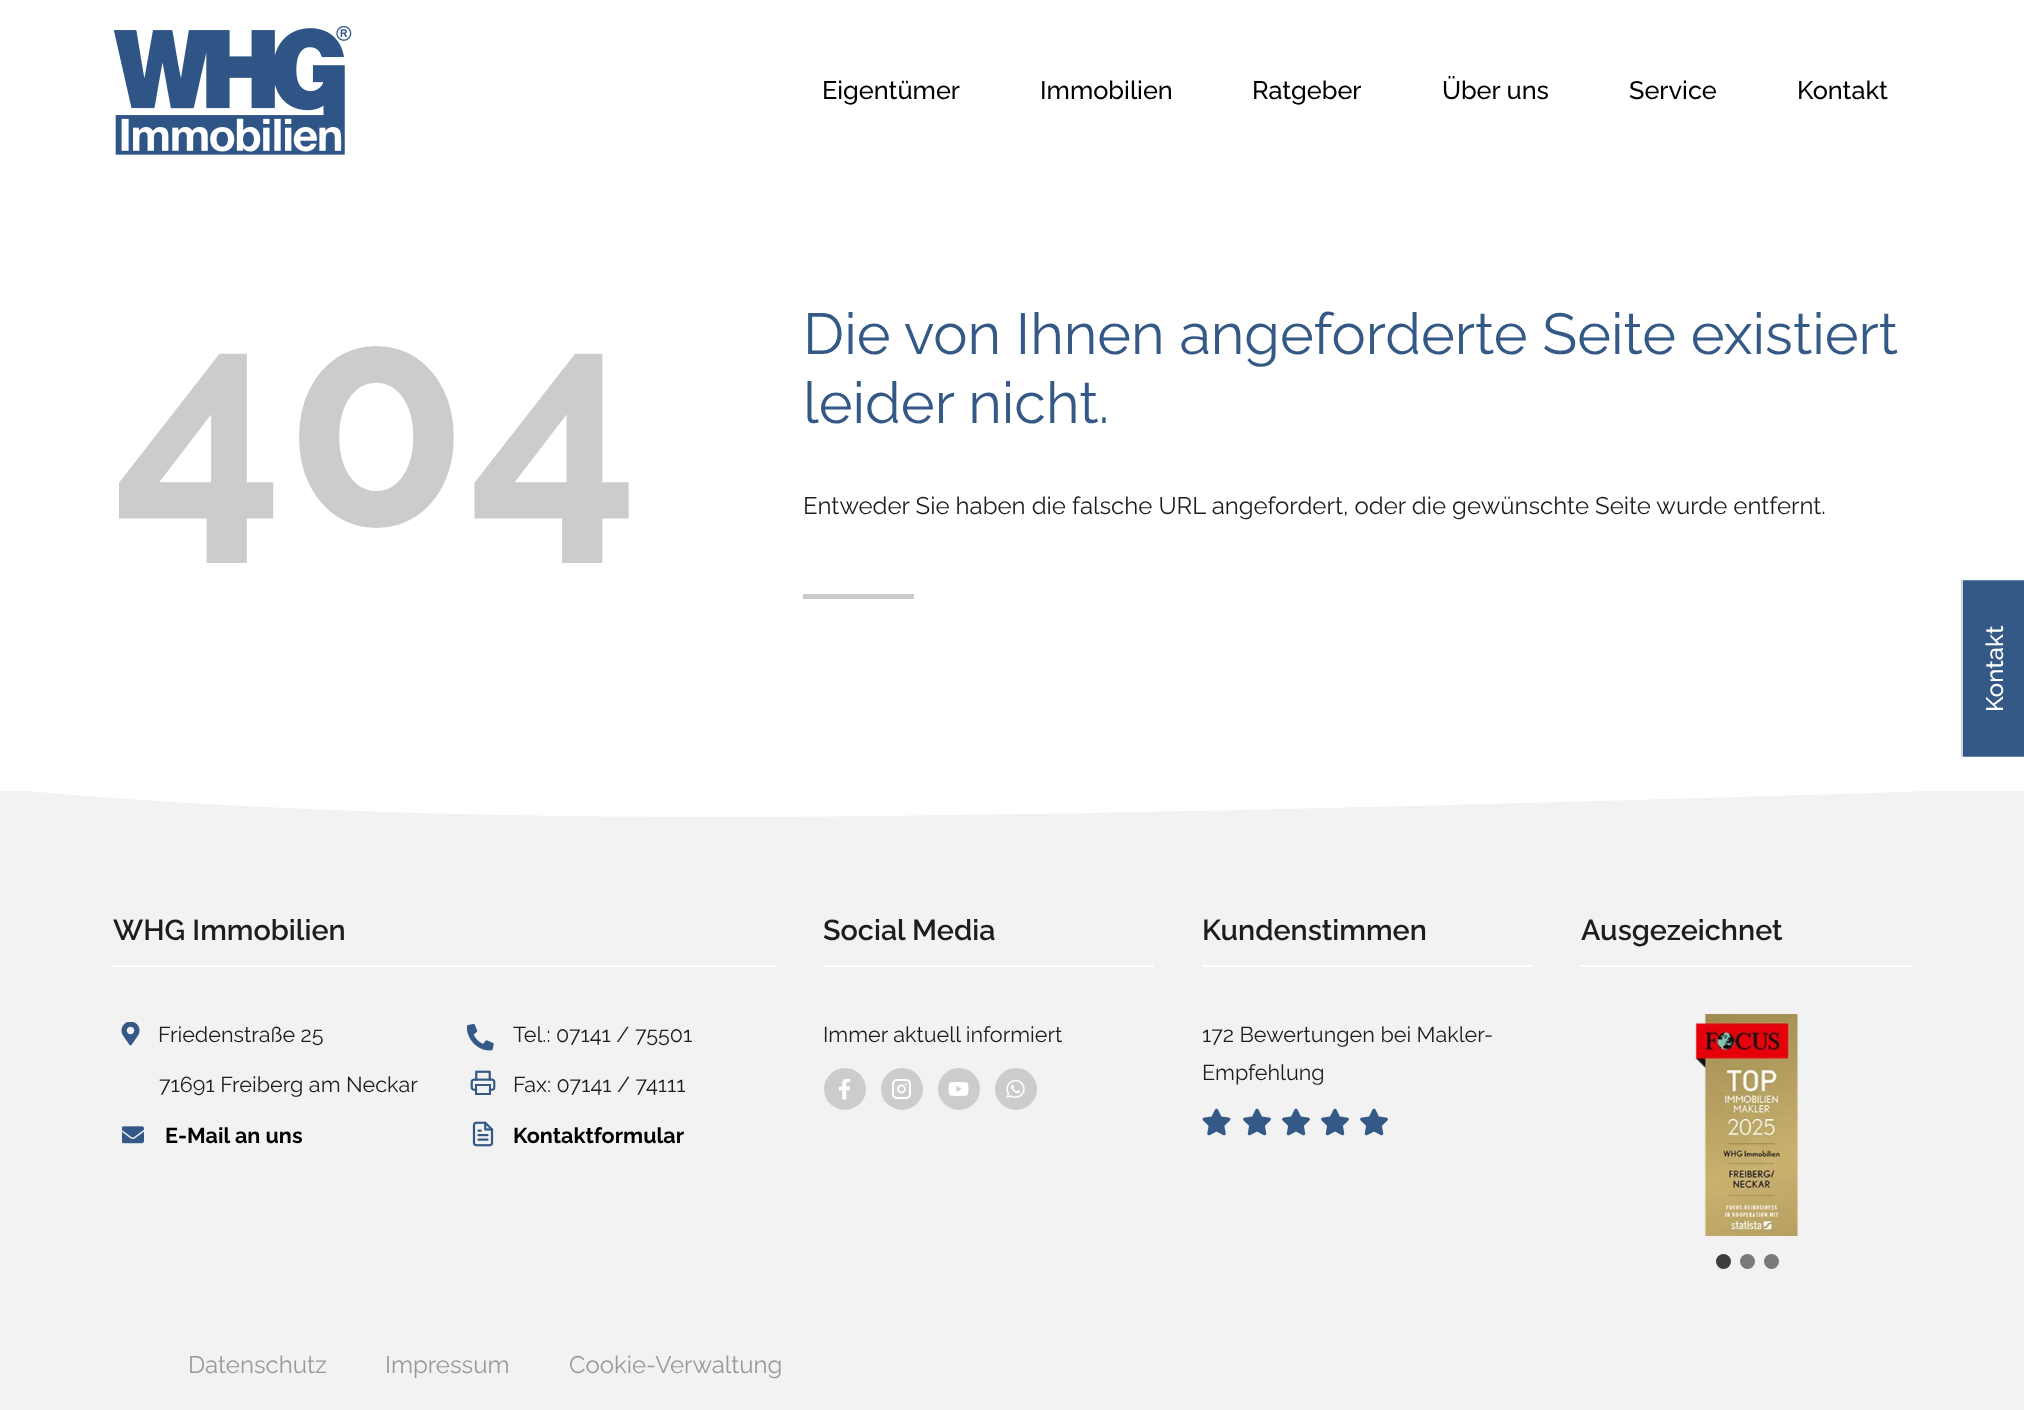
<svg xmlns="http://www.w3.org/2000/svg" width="2024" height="1410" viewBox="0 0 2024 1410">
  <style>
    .t1 { font: 500 25.25px Raleway; fill: #000; }
    .t2 { font: bold 300px Raleway; fill: #ccc; }
    .t3 { font: 57.6px Raleway; fill: #345987; }
    .t4 { font: 24px Raleway; fill: #1d1d1d; }
    .t5 { font: 500 24px Raleway; fill: #fff; }
    .t6 { font: 600 28.75px Raleway; fill: #1d1d1d; }
    .t7 { font: 21.6px Raleway; fill: #1d1d1d; }
    .t8 { font: bold 21.6px Raleway; fill: #000; }
    .t9 { font: 24px Raleway; fill: #999; }
  </style>
  <defs>
    <clipPath id="clip1"><rect x="0" y="789" width="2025" height="30"/></clipPath>
  </defs>
  <rect width="100%" height="100%" fill="#fff"/>
  <image x="113" y="26" width="239" height="129" href="images/1.png"/>
  <text x="822" y="99" class="t1">Eigentümer</text>
  <text x="1040" y="99" class="t1">Immobilien</text>
  <text x="1252" y="99" class="t1">Ratgeber</text>
  <text x="1442" y="99" class="t1">Über uns</text>
  <text x="1629" y="99" class="t1">Service</text>
  <text x="1797" y="99" class="t1">Kontakt</text>
  <text x="113" y="525" class="t2">404</text>
  <text x="803" y="354" class="t3">Die von Ihnen angeforderte Seite existiert</text>
  <text x="803" y="423" class="t3">leider nicht.</text>
  <text x="803" y="514" class="t4">Entweder Sie haben die falsche URL angefordert, oder die gewünschte Seite wurde entfernt.</text>
  <rect x="803" y="594" width="111" height="5" fill="#ccc"/>
  <rect x="1961" y="579" width="63" height="179" fill="#345987"/>
  <path d="M1962 757.5V579.5H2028.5V757.5Z" fill="none" stroke="#fff" stroke-width="1.5"/>
  <text x="2003" y="712" transform="rotate(-90 2003 712)" class="t5">Kontakt</text>
  <rect x="0" y="791" width="2024" height="619" fill="#f2f2f2"/>
  <g clip-path="url(#clip1)">
    <path d="M0 788C0 788 245 817 709 817C1173 817 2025 788 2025 788Z" fill="#fff"/>
  </g>
  <rect x="113" y="965" width="663" height="2" fill="#fff"/>
  <text x="113" y="940" class="t6">WHG Immobilien</text>
  <image x="121" y="1022" width="19" height="24" href="images/2.png"/>
  <text x="158" y="1042" class="t7">Friedenstraße 25</text>
  <text x="159" y="1092" class="t7">71691 Freiberg am Neckar</text>
  <image x="122" y="1126" width="22" height="18" href="images/3.png"/>
  <text x="165" y="1143" class="t8">E-Mail an uns</text>
  <image x="467" y="1023" width="27" height="28" href="images/4.png"/>
  <text x="513" y="1042" class="t7">Tel.: 07141 / 75501</text>
  <image x="470" y="1070" width="26" height="25" href="images/5.png"/>
  <text x="513" y="1092" class="t7">Fax: 07141 / 74111</text>
  <image x="472" y="1121" width="22" height="26" href="images/6.png"/>
  <text x="513" y="1143" class="t8">Kontaktformular</text>
  <rect x="824" y="965" width="330" height="2" fill="#fff"/>
  <text x="823" y="940" class="t6">Social Media</text>
  <text x="823" y="1042" class="t7">Immer aktuell informiert</text>
  <circle cx="845" cy="1089" r="19.5" fill="#ccc" stroke="#ccc" stroke-width="3"/>
  <image x="838" y="1079" width="13" height="21" href="images/7.png"/>
  <circle cx="902" cy="1089" r="19.5" fill="#ccc" stroke="#ccc" stroke-width="3"/>
  <image x="892" y="1079" width="19" height="20" href="images/8.png"/>
  <circle cx="959" cy="1089" r="19.5" fill="#ccc" stroke="#ccc" stroke-width="3"/>
  <image x="948" y="1082" width="21" height="14" href="images/9.png"/>
  <circle cx="1016" cy="1089" r="19.5" fill="#ccc" stroke="#ccc" stroke-width="3"/>
  <image x="1006" y="1079" width="19" height="19" href="images/10.png"/>
  <rect x="1202" y="965" width="331" height="2" fill="#fff"/>
  <text x="1202" y="940" class="t6">Kundenstimmen</text>
  <text x="1202" y="1042" class="t7">172 Bewertungen bei Makler-</text>
  <text x="1202" y="1080" class="t7">Empfehlung</text>
  <image x="1202" y="1108" width="29" height="28" href="images/11.png"/>
  <image x="1243" y="1108" width="28" height="28" href="images/12.png"/>
  <image x="1282" y="1108" width="28" height="28" href="images/12.png"/>
  <image x="1321" y="1108" width="28" height="28" href="images/12.png"/>
  <image x="1360" y="1108" width="28" height="28" href="images/12.png"/>
  <rect x="1581" y="965" width="332" height="2" fill="#fff"/>
  <text x="1581" y="940" class="t6">Ausgezeichnet</text>
  <image x="1695" y="1014" width="103" height="222" href="images/13.png"/>
  <circle cx="1723.5" cy="1261.5" r="7.5" fill="#3d3d3d"/>
  <circle cx="1747.5" cy="1261.5" r="7.5" fill="#797979"/>
  <circle cx="1771.5" cy="1261.5" r="7.5" fill="#797979"/>
  <text x="188" y="1373" class="t9">Datenschutz</text>
  <text x="385" y="1373" class="t9">Impressum</text>
  <text x="569" y="1373" class="t9">Cookie-Verwaltung</text>
</svg>
